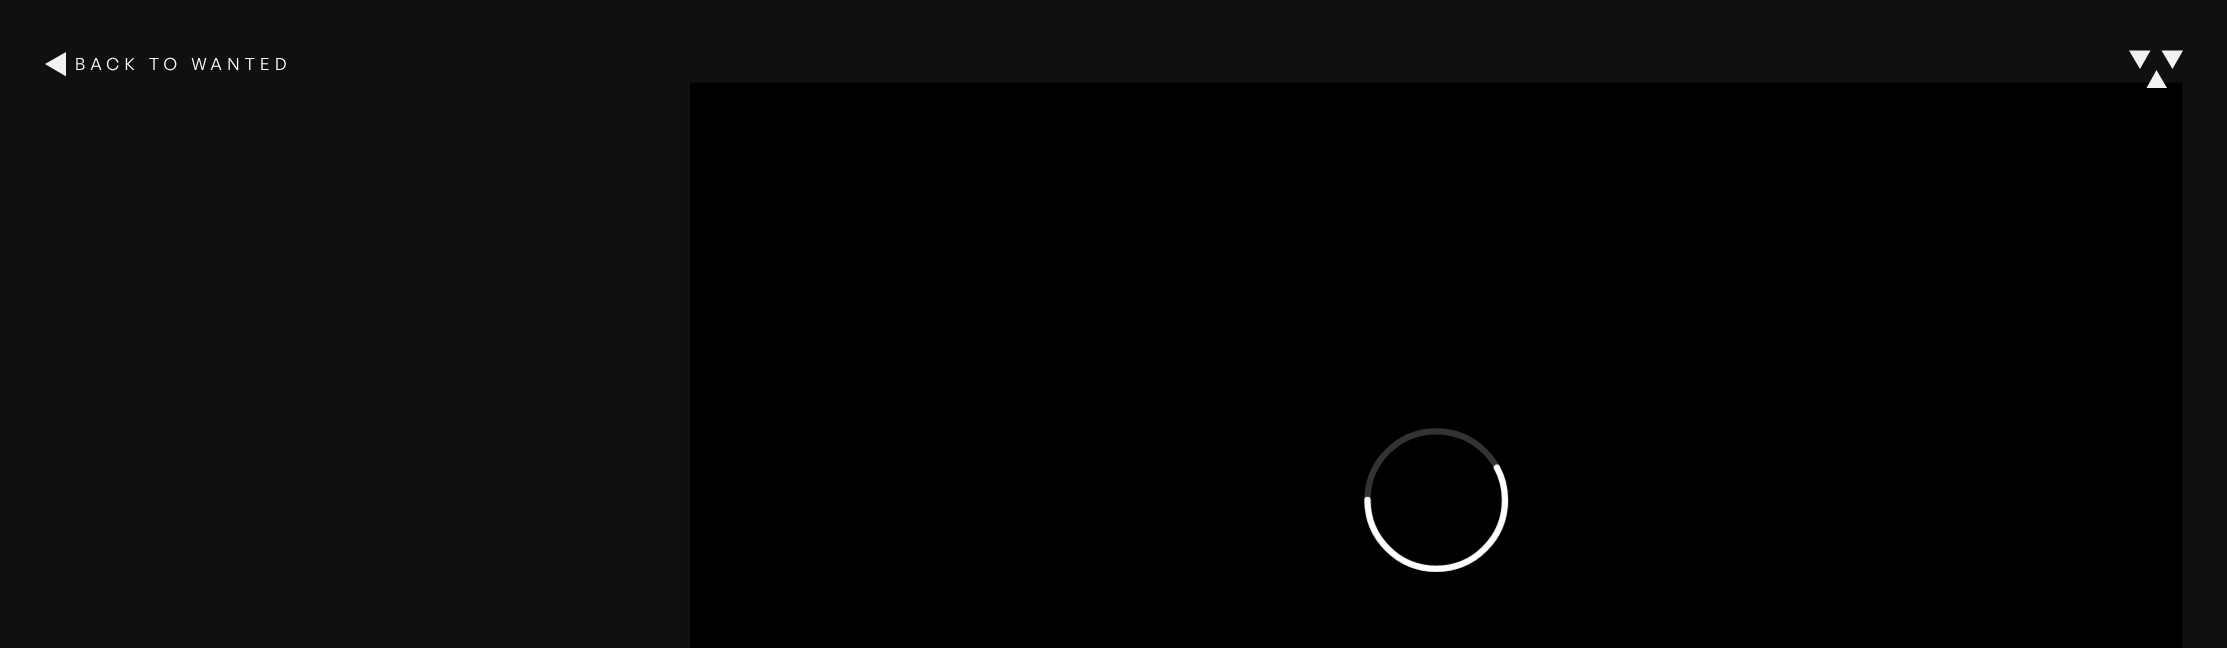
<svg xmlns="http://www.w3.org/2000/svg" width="2227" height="648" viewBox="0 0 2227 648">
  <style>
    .t1 { font: 16.75px General Sans; letter-spacing: 5.3px; fill: #fff; }
  </style>
  <defs>
    <clipPath id="clip1"><rect x="45" y="51" width="21" height="25"/></clipPath>
  </defs>
  <rect width="100%" height="100%" fill="#101010"/>
  <g clip-path="url(#clip1)">
    <path d="M45 64L67 51.5V77Z" fill="#f2f2f2"/>
  </g>
  <text x="75" y="70" class="t1">BACK TO WANTED</text>
  <image x="690" y="82" width="1493" height="566" href="images/1.png"/>
  <path d="M2140 69L2129 50.5H2150.5ZM2156.5 70L2167 88H2146.5Z" fill="#f2f2f2"/>
  <path d="M2172.5 69L2161.5 50.5H2183Z" fill="#f2f2f2"/>
</svg>
